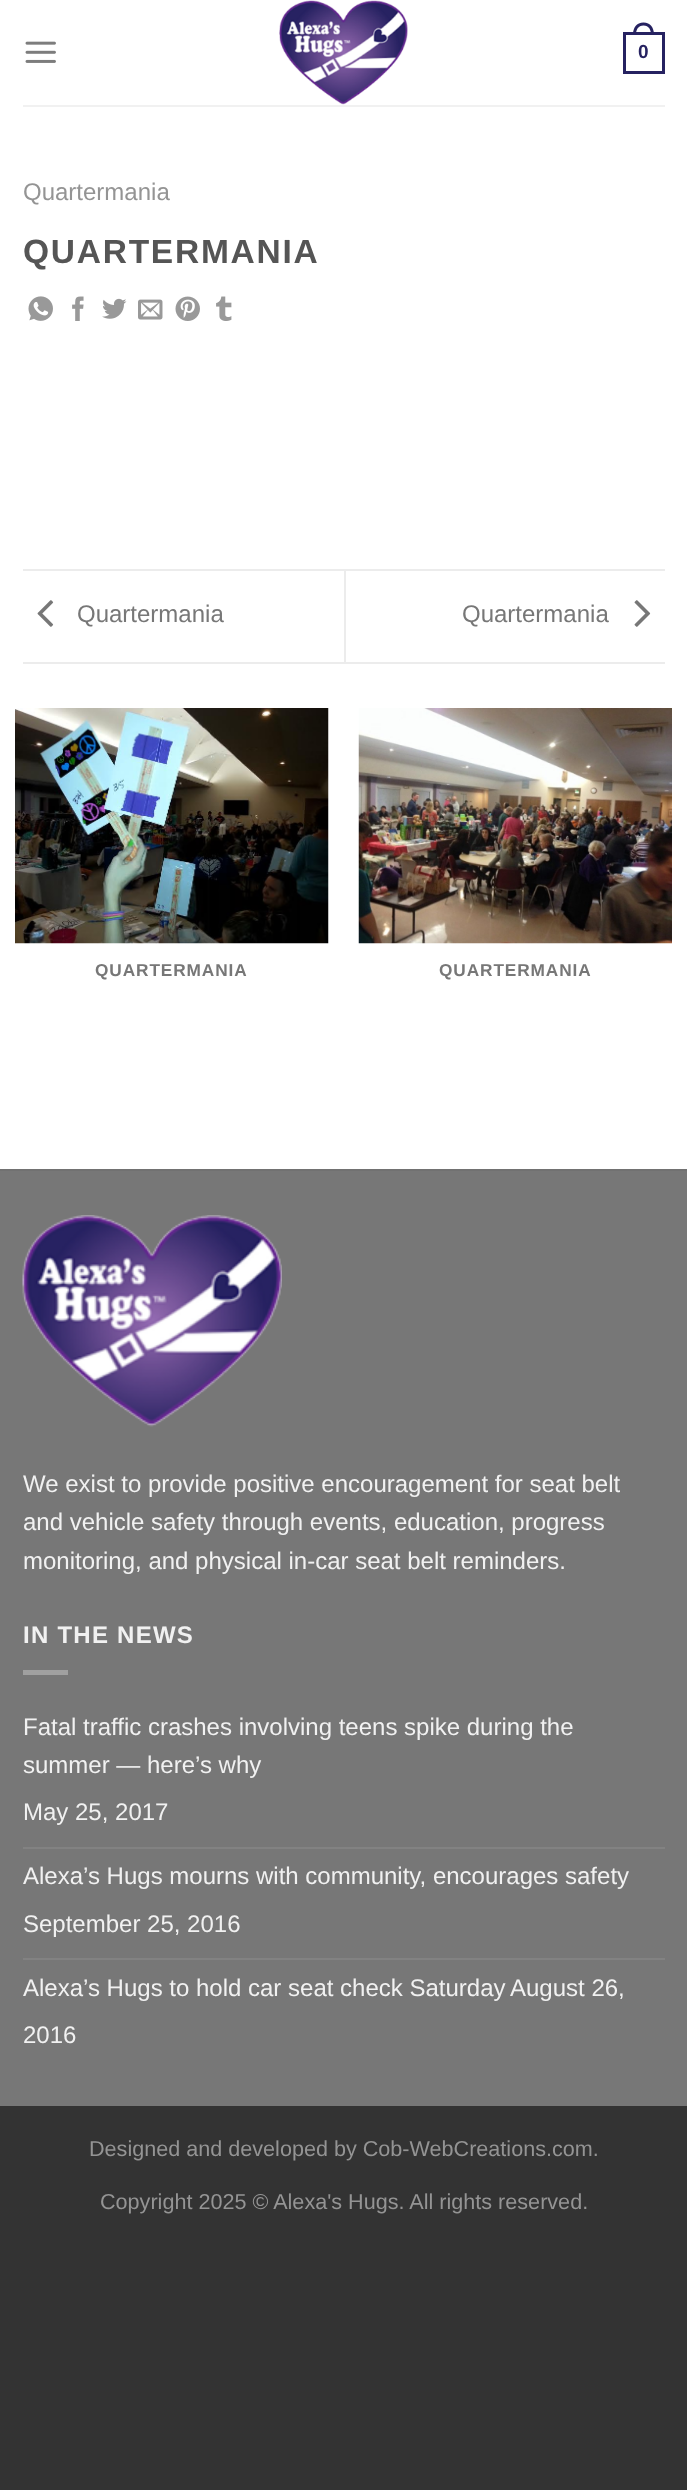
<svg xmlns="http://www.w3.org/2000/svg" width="687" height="2490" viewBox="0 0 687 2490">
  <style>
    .t1 { font: bold 19px Liberation Sans; fill: #262261; }
    .t2 { font: 24px Liberation Sans; fill: #949494; }
    .t3 { font: bold 33.5px Liberation Sans; letter-spacing: 1.75px; fill: #555; }
    .t4 { font: 24px Liberation Sans; fill: #777; }
    .t5 { font: bold 17.25px Liberation Sans; letter-spacing: 0.9px; fill: #777; }
    .t6 { font: 24px Liberation Sans; fill: #f1f1f1; }
    .t7 { font: bold 24px Liberation Sans; letter-spacing: 1.25px; fill: #f1f1f1; }
    .t8 { font: 21.6px Liberation Sans; fill: #949494; }
  </style>
  <rect width="100%" height="100%" fill="#333"/>
  <rect x="0" y="0" width="687" height="1169" fill="#fff"/>
  <image x="25" y="41" width="31" height="22" href="images/1.png"/>
  <image x="279" y="0" width="129" height="105" href="images/2.png"/>
  <rect x="624.5" y="33.5" width="39" height="39" fill="none" stroke="#262261" stroke-width="3"/>
  <path d="M643.5 22.5C650.5 22.5 654 28 654 34.5H633C633 28 636.5 22.5 643.5 22.5ZM643.5 25.5C649 25.5 651 30 651 34.5H636C636 30 638 25.5 643.5 25.5Z" fill="#262261" fill-rule="evenodd"/>
  <text x="638" y="58" class="t1">0</text>
  <rect x="23" y="105" width="642" height="2" fill="#f1f1f1"/>
  <text x="23" y="200" class="t2">Quartermania</text>
  <text x="23" y="263" class="t3">QUARTERMANIA</text>
  <image x="28" y="296" width="25" height="25" href="images/3.png"/>
  <image x="72" y="296" width="12" height="25" href="images/4.png"/>
  <image x="102" y="298" width="25" height="21" href="images/5.png"/>
  <image x="138" y="299" width="25" height="21" href="images/6.png"/>
  <image x="175" y="296" width="25" height="25" href="images/7.png"/>
  <image x="216" y="296" width="16" height="25" href="images/8.png"/>
  <rect x="23" y="569" width="642" height="2" fill="#ececec"/>
  <rect x="23" y="662" width="642" height="2" fill="#ececec"/>
  <image x="37" y="600" width="17" height="27" href="images/9.png"/>
  <text x="77" y="622" class="t4">Quartermania</text>
  <rect x="344" y="570" width="2" height="92" fill="#ececec"/>
  <text x="462" y="622" class="t4">Quartermania</text>
  <image x="634" y="600" width="17" height="27" href="images/10.png"/>
  <image x="15" y="708" width="314" height="236" href="images/11.png"/>
  <text x="95" y="976" class="t5">QUARTERMANIA</text>
  <image x="358" y="708" width="314" height="236" href="images/12.png"/>
  <text x="439" y="976" class="t5">QUARTERMANIA</text>
  <rect x="0" y="1171" width="687" height="935" fill="#777"/>
  <rect x="0" y="1169" width="687" height="2" fill="#717171"/>
  <image x="22" y="1215" width="260" height="212" href="images/13.png"/>
  <text x="23" y="1492" class="t6">We exist to provide positive encouragement for seat belt</text>
  <text x="23" y="1530" class="t6">and vehicle safety through events, education, progress</text>
  <text x="23" y="1569" class="t6">monitoring, and physical in-car seat belt reminders.</text>
  <text x="23" y="1643" class="t7">IN THE NEWS</text>
  <rect x="23" y="1670" width="45" height="5" fill="#a0a0a0"/>
  <text x="23" y="1735" class="t6">Fatal traffic crashes involving teens spike during the</text>
  <text x="23" y="1773" class="t6">summer — here’s why</text>
  <text x="23" y="1820" class="t6">May 25, 2017</text>
  <rect x="23" y="1847" width="642" height="2" fill="#828282"/>
  <text x="23" y="1884" class="t6">Alexa’s Hugs mourns with community, encourages safety</text>
  <text x="23" y="1932" class="t6">September 25, 2016</text>
  <rect x="23" y="1958" width="642" height="2" fill="#828282"/>
  <text x="23" y="1996" class="t6">Alexa’s Hugs to hold car seat check Saturday</text>
  <text x="510" y="1996" class="t6">August 26,</text>
  <text x="23" y="2043" class="t6">2016</text>
  <text x="89" y="2156" class="t8">Designed and developed by Cob-WebCreations.com.</text>
  <text x="100" y="2209" class="t8">Copyright 2025 © Alexa's Hugs. All rights reserved.</text>
</svg>
